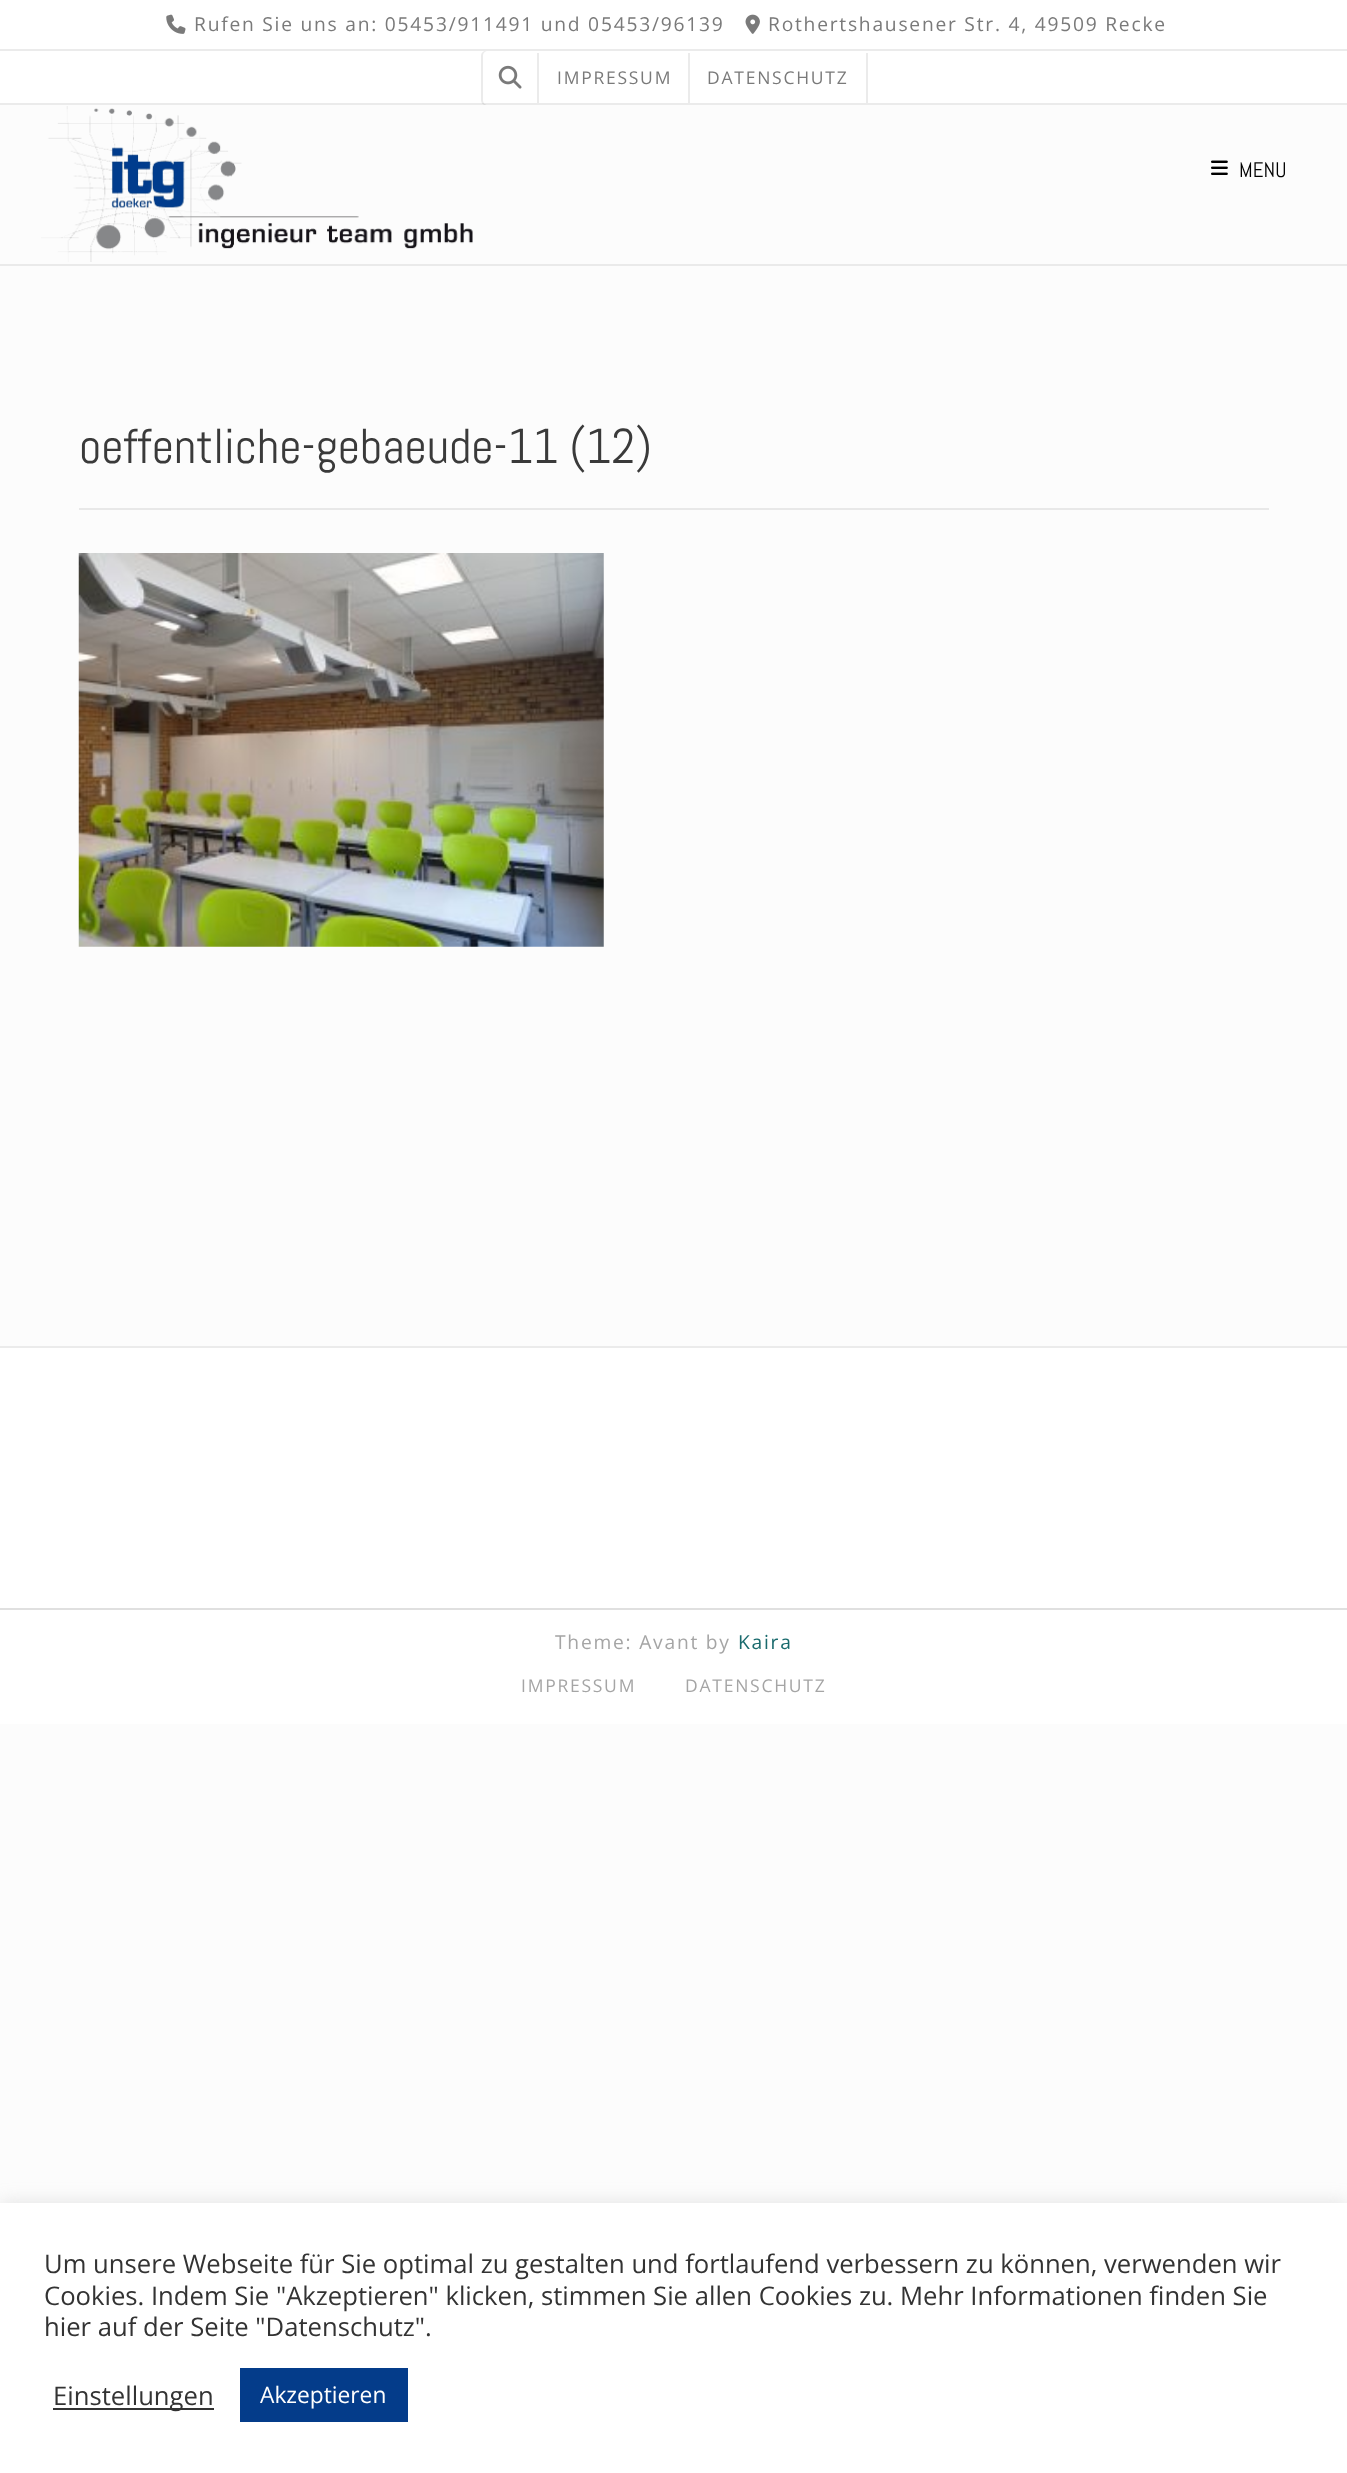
<svg xmlns="http://www.w3.org/2000/svg" width="1347" height="2473" viewBox="0 0 1347 2473">
  <style>
    .t1 { font: 19.25px Open Sans; letter-spacing: 1.75px; fill: #7a7a7a; }
    .t2 { font: 17.5px Open Sans; letter-spacing: 1.75px; fill: #7a7a7a; }
    .t3 { font: 21px Abel; fill: #000; }
    .t4 { font: 49px Abel; fill: #3a3a3a; }
    .t5 { font: 19.25px Open Sans; letter-spacing: 1.75px; fill: #a5a5a5; }
    .t6 { font: 19.25px Open Sans; letter-spacing: 1.75px; fill: #196a6d; }
    .t7 { font: 17.5px Open Sans; letter-spacing: 1.75px; fill: #a5a5a5; }
    .t8 { font: 25.65px Open Sans; fill: #333; }
    .t9 { font: 22.75px Open Sans; fill: #fff; }
  </style>
  <rect width="100%" height="100%" fill="#fcfcfc"/>
  <rect x="0" y="0" width="1347" height="49" fill="#fff"/>
  <rect x="0" y="49" width="1347" height="2" fill="#ebebeb"/>
  <image x="166" y="14" width="20" height="20" href="images/1.png"/>
  <text x="194" y="31" class="t1">Rufen Sie uns an: 05453/911491 und 05453/96139</text>
  <image x="745" y="14" width="15" height="20" href="images/2.png"/>
  <text x="768" y="31" class="t1">Rothertshausener Str. 4, 49509 Recke</text>
  <rect x="0" y="51" width="1347" height="52" fill="#fff"/>
  <rect x="0" y="103" width="1347" height="2" fill="#ebebeb"/>
  <path d="M486 51C483 51 481 53 481 56V100C481 103 483 105 486 105H488C485 105 483 103 483 100V56C483 53 485 51 488 51Z" fill="#00000014"/>
  <image x="498" y="65" width="24" height="24" href="images/3.png"/>
  <rect x="537" y="53" width="2" height="50" fill="#ebebeb"/>
  <text x="557" y="84" class="t2">IMPRESSUM</text>
  <rect x="866" y="53" width="2" height="50" fill="#ebebeb"/>
  <rect x="688" y="53" width="2" height="50" fill="#ebebeb"/>
  <text x="707" y="84" class="t2">DATENSCHUTZ</text>
  <rect x="0" y="264" width="1347" height="2" fill="#eaeaea"/>
  <image x="41" y="106" width="432" height="156" href="images/4.png"/>
  <image x="1211" y="160" width="17" height="15" href="images/5.png"/>
  <text x="1239" y="177" class="t3">MENU</text>
  <rect x="79" y="508" width="1190" height="2" fill="#e8e8e8"/>
  <text x="79" y="463" class="t4">oeffentliche-gebaeude-11 (12)</text>
  <image x="78" y="553" width="526" height="394" href="images/6.png"/>
  <rect x="0" y="1348" width="1347" height="260" fill="#fff"/>
  <rect x="0" y="1346" width="1347" height="2" fill="#ebebeb"/>
  <rect x="0" y="1610" width="1347" height="114" fill="#fff"/>
  <rect x="0" y="1608" width="1347" height="2" fill="#e0e0e0"/>
  <text x="555" y="1649" class="t5">Theme: Avant by</text>
  <text x="738" y="1649" class="t6">Kaira</text>
  <text x="521" y="1692" class="t7">IMPRESSUM</text>
  <text x="685" y="1692" class="t7">DATENSCHUTZ</text>
  <rect x="0" y="2202" width="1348" height="271" fill="#acabab4d" filter="blur(9px)"/>
  <rect x="0" y="2203" width="1347" height="270" fill="#fff"/>
  <text x="44" y="2273" class="t8">Um unsere Webseite für Sie optimal zu gestalten und fortlaufend verbessern zu können, verwenden wir</text>
  <text x="44" y="2305" class="t8">Cookies. Indem Sie "Akzeptieren" klicken, stimmen Sie allen Cookies zu. Mehr Informationen finden Sie</text>
  <text x="44" y="2336" class="t8">hier auf der Seite "Datenschutz".</text>
  <rect x="53" y="2408" width="161" height="2" fill="#333"/>
  <text x="53" y="2405" class="t8">Einstellungen</text>
  <rect x="240" y="2368" width="168" height="54" fill="#043c8a"/>
  <text x="260" y="2403" class="t9">Akzeptieren</text>
</svg>
